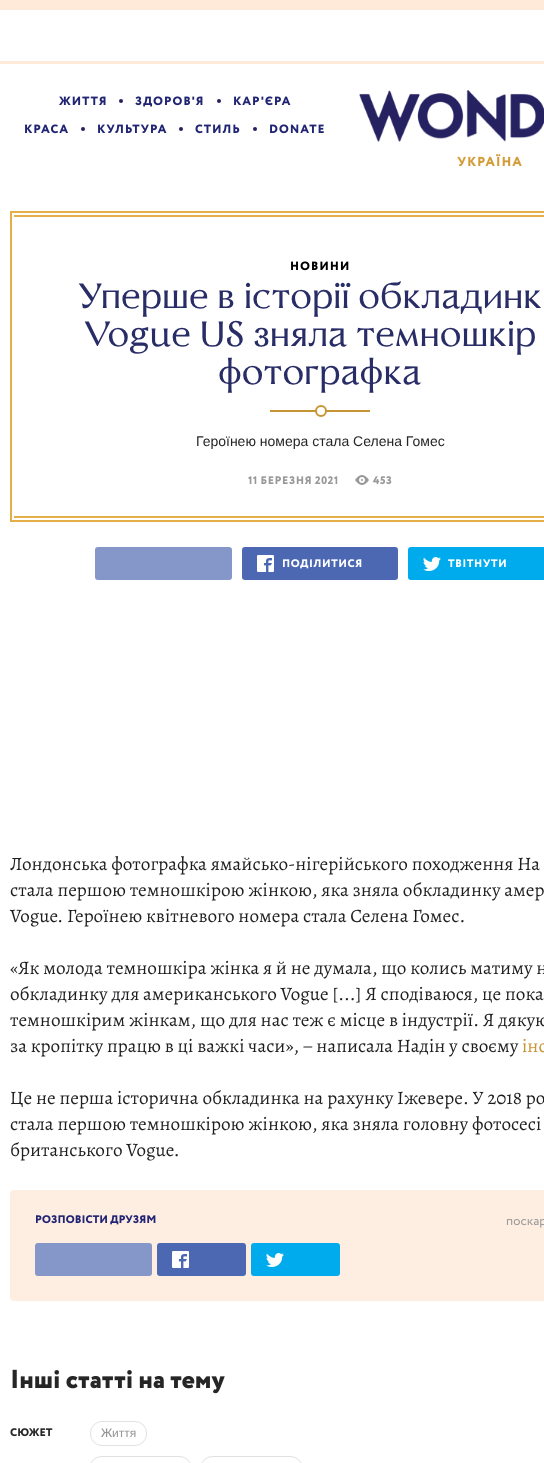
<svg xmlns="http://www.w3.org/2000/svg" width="544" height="1463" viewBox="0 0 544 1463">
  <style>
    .t1 { font: 35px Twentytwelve; fill: #292d67; }
    .t2 { font: 14px Liberation Sans; fill: #262626; }
    .t3 { font: 19px Alegreya; fill: #1e1e20; }
    .t4 { font: 19px Alegreya; fill: #c89534; }
    .t5 { font: 500 12px Noto Sans; fill: #959595; }
    .t6 { font: 12px Liberation Sans; fill: #959595; }
  </style>
  <rect width="100%" height="100%" fill="#ffeada"/>
  <rect x="0" y="10" width="544" height="51" fill="#fff"/>
  <rect x="0" y="64" width="544" height="117" fill="#fff"/>
  <image x="59" y="96" width="47" height="9" href="images/1.png"/>
  <circle cx="121" cy="101" r="2" fill="#262261"/>
  <image x="135" y="96" width="68" height="11" href="images/2.png"/>
  <circle cx="219" cy="101" r="2" fill="#262261"/>
  <image x="234" y="96" width="57" height="10" href="images/3.png"/>
  <image x="25" y="124" width="43" height="10" href="images/4.png"/>
  <circle cx="83" cy="129" r="2" fill="#262261"/>
  <image x="98" y="124" width="69" height="9" href="images/5.png"/>
  <circle cx="181" cy="129" r="2" fill="#262261"/>
  <image x="195" y="124" width="45" height="10" href="images/6.png"/>
  <circle cx="255" cy="129" r="2" fill="#262261"/>
  <image x="270" y="124" width="54" height="10" href="images/7.png"/>
  <image x="359" y="90" width="185" height="53" href="images/8.png"/>
  <image x="457" y="154" width="65" height="12" href="images/9.png"/>
  <rect x="0" y="181" width="544" height="1009" fill="#fff"/>
  <rect x="11" y="212" width="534" height="309" fill="none" stroke="#e5af48" stroke-width="2"/>
  <rect x="14" y="215" width="530" height="2" fill="#e5af48"/>
  <image x="291" y="261" width="58" height="10" href="images/10.png"/>
  <text x="78" y="308" class="t1">Уперше в історії обкладинк</text>
  <text x="84" y="346" class="t1">Vogue US зняла темношкір</text>
  <text x="218" y="384" class="t1">фотографка</text>
  <rect x="270" y="410" width="100" height="2" fill="#c89534"/>
  <circle cx="321" cy="411" r="5" fill="#fff" stroke="#c89534" stroke-width="2"/>
  <text x="196" y="446" class="t2">Героїнею номера стала Селена Гомес</text>
  <image x="248" y="476" width="90" height="9" href="images/11.png"/>
  <image x="355" y="475" width="14" height="10" href="images/12.png"/>
  <image x="373" y="476" width="19" height="9" href="images/13.png"/>
  <rect x="14" y="516" width="530" height="2" fill="#e5af48"/>
  <rect x="95" y="547" width="137" height="33" rx="3" fill="#8597c8"/>
  <rect x="242" y="547" width="156" height="33" rx="3" fill="#4c68b3"/>
  <image x="257" y="555" width="17" height="17" href="images/14.png"/>
  <image x="283" y="559" width="79" height="10" href="images/15.png"/>
  <rect x="408" y="547" width="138" height="33" rx="3" fill="#00abed"/>
  <image x="423" y="557" width="18" height="14" href="images/16.png"/>
  <image x="448" y="559" width="58" height="9" href="images/17.png"/>
  <text x="10" y="870" class="t3">Лондонська фотографка ямайсько-нігерійського походження На</text>
  <text x="10" y="896" class="t3">стала першою темношкірою жінкою, яка зняла обкладинку амер</text>
  <text x="10" y="922" class="t3">Vogue. Героїнею квітневого номера стала Селена Гомес.</text>
  <text x="10" y="974" class="t3">«Як молода темношкіра жінка я й не думала, що колись матиму н</text>
  <text x="10" y="1000" class="t3">обкладинку для американського Vogue [...] Я сподіваюся, це пока</text>
  <text x="10" y="1026" class="t3">темношкірим жінкам, що для нас теж є місце в індустрії. Я дякую</text>
  <text x="10" y="1052" class="t3">за кропітку працю в ці важкі часи», − написала Надін у своєму</text>
  <text x="522" y="1052" class="t4">інс</text>
  <text x="10" y="1104" class="t3">Це не перша історична обкладинка на рахунку Іжевере. У 2018 ро</text>
  <text x="10" y="1130" class="t3">стала першою темношкірою жінкою, яка зняла головну фотосесі</text>
  <text x="10" y="1156" class="t3">британського Vogue.</text>
  <rect x="0" y="1190" width="544" height="273" fill="#fff"/>
  <rect x="10" y="1190" width="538" height="111" rx="4" fill="#feeee2"/>
  <image x="36" y="1215" width="120" height="10" href="images/18.png"/>
  <image x="506" y="1219" width="38" height="9" href="images/19.png"/>
  <rect x="35" y="1243" width="117" height="33" rx="3" fill="#8597c8"/>
  <rect x="157" y="1243" width="89" height="33" rx="3" fill="#4c68b3"/>
  <image x="172" y="1251" width="17" height="17" href="images/14.png"/>
  <rect x="251" y="1243" width="89" height="33" rx="3" fill="#00abed"/>
  <image x="266" y="1253" width="18" height="14" href="images/16.png"/>
  <image x="12" y="1369" width="213" height="25" href="images/20.png"/>
  <image x="10" y="1428" width="43" height="9" href="images/21.png"/>
  <rect x="90.5" y="1421.5" width="56" height="24" rx="11.5" fill="none" stroke="#e1e1e1"/>
  <text x="101" y="1437" class="t5">Ж</text>
  <text x="112" y="1437" class="t6">иття</text>
  <rect x="90.5" y="1456.5" width="100" height="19" rx="11.5" fill="none" stroke="#e1e1e1"/>
  <rect x="201.5" y="1456.5" width="100" height="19" rx="11.5" fill="none" stroke="#e1e1e1"/>
</svg>
